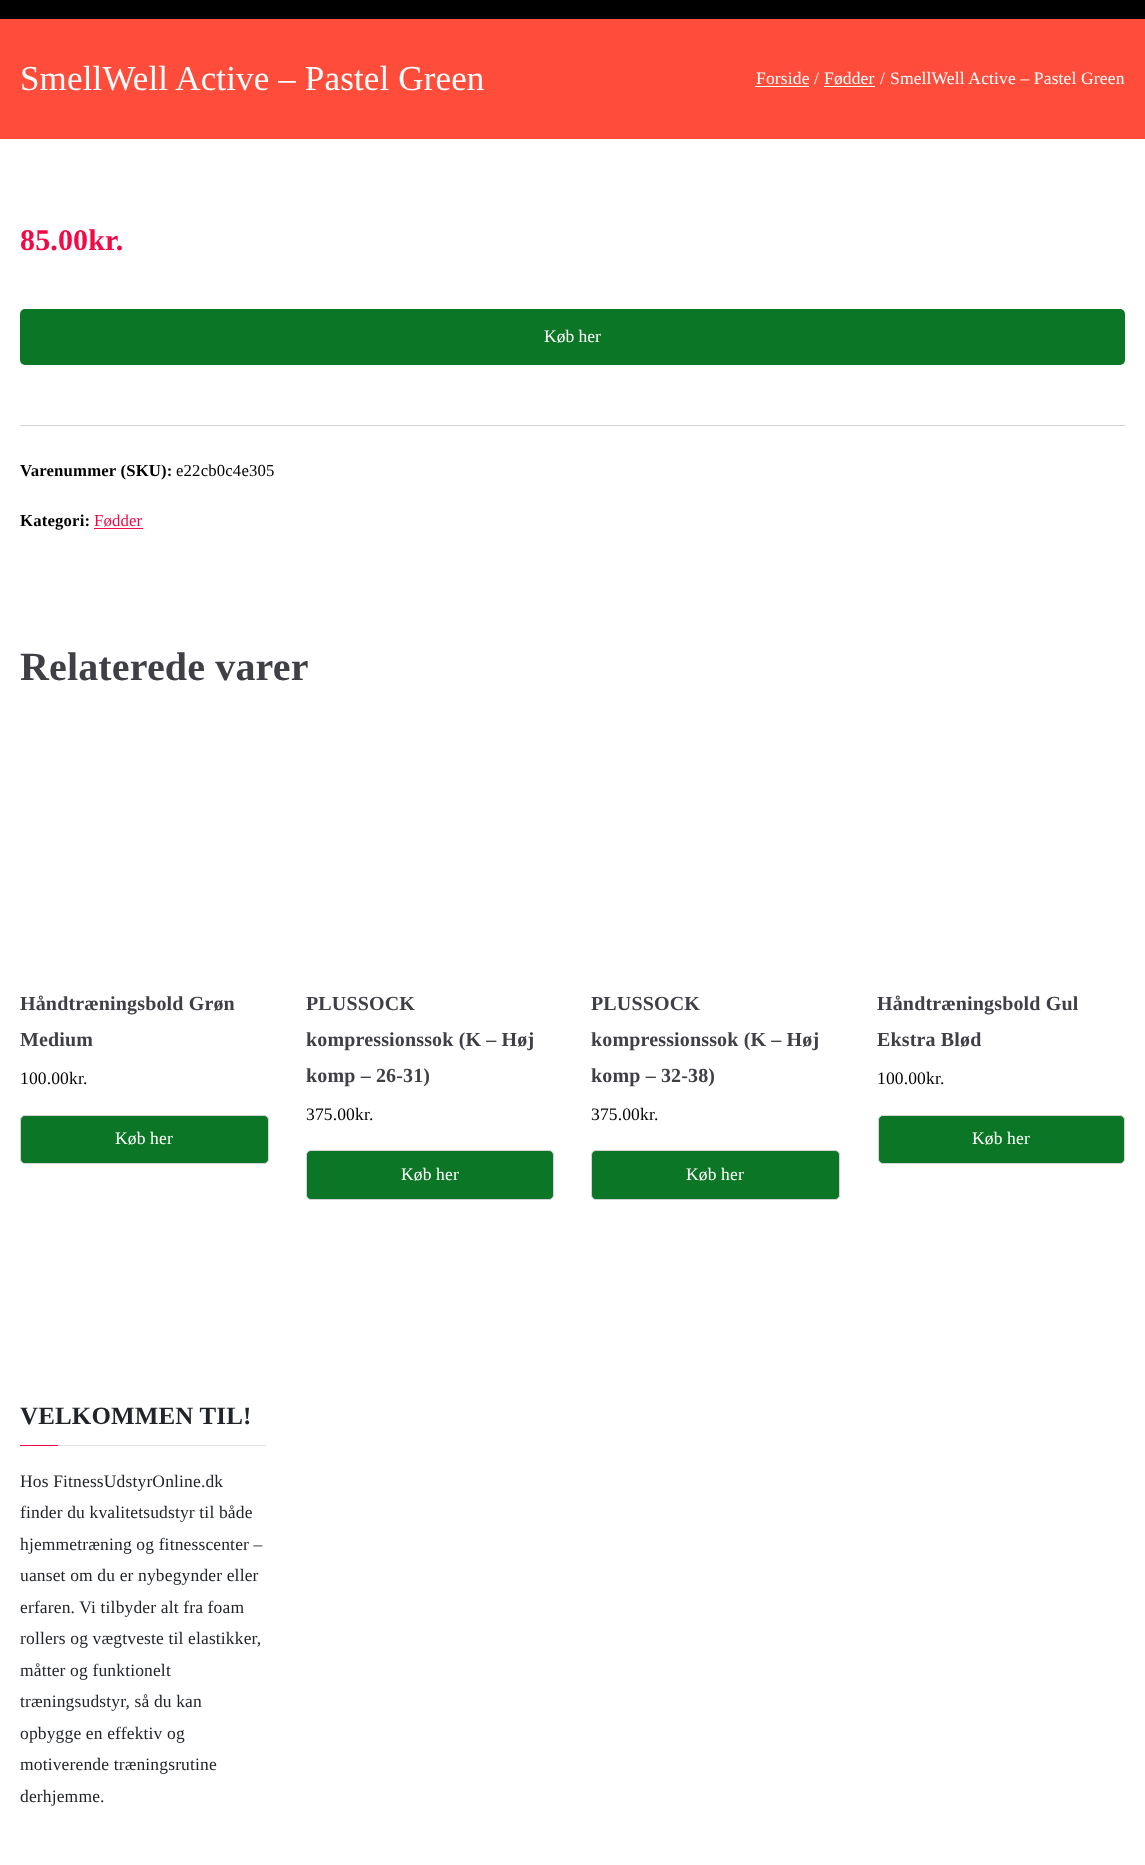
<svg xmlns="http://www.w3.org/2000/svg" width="1145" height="1865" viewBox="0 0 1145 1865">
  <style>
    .t1 { font: 35px Liberation Serif; letter-spacing: 0.15px; fill: #fff; }
    .t2 { font: 17.5px Liberation Serif; letter-spacing: 0.15px; fill: #fff; }
    .t3 { font: bold 30px Liberation Serif; letter-spacing: 0.15px; fill: #f10a46; }
    .t4 { font: 17.5px Liberation Serif; fill: #fff; }
    .t5 { font: bold 16.75px Liberation Serif; letter-spacing: 0.15px; fill: #000; }
    .t6 { font: 16.75px Liberation Serif; letter-spacing: 0.15px; fill: #000; }
    .t7 { font: 16.75px Liberation Serif; letter-spacing: 0.15px; fill: #f10a46; }
    .t8 { font: bold 40px Liberation Serif; letter-spacing: 0.15px; fill: #3f3f46; }
    .t9 { font: bold 20px Liberation Serif; letter-spacing: 0.15px; fill: #3f3f46; }
    .t10 { font: 17.5px Liberation Serif; letter-spacing: 0.15px; fill: #000; }
    .t11 { font: bold 25px Liberation Serif; letter-spacing: 0.15px; fill: #212529; }
    .t12 { font: 17.5px Liberation Serif; letter-spacing: 0.15px; fill: #212529; }
  </style>
  <rect width="100%" height="100%" fill="#ff4c3b"/>
  <rect x="0" y="0" width="1145" height="19" fill="#000"/>
  <text x="20" y="90" class="t1">SmellWell Active – Pastel Green</text>
  <text x="756" y="84" class="t2">Forside</text>
  <rect x="755" y="86" width="54" height="1" fill="#fff"/>
  <text x="814" y="84" class="t2">/</text>
  <text x="824" y="84" class="t2">Fødder</text>
  <rect x="824" y="86" width="51" height="1" fill="#fff"/>
  <text x="880" y="84" class="t2">/</text>
  <text x="890" y="84" class="t2">SmellWell Active – Pastel Green</text>
  <rect x="0" y="139" width="1145" height="1726" fill="#fff"/>
  <text x="20" y="250" class="t3">85.00kr.</text>
  <rect x="20" y="309" width="1105" height="56" rx="5" fill="#0b7625"/>
  <text x="544" y="342" class="t4">Køb her</text>
  <rect x="20" y="425" width="1105" height="1" fill="#d4d4d8"/>
  <text x="20" y="476" class="t5">Varenummer (SKU):</text>
  <text x="176" y="476" class="t6">e22cb0c4e305</text>
  <text x="20" y="526" class="t5">Kategori:</text>
  <text x="94" y="526" class="t7">Fødder</text>
  <rect x="94" y="528" width="49" height="1" fill="#f10a46"/>
  <text x="20" y="680" class="t8">Relaterede varer</text>
  <text x="20" y="1010" class="t9">Håndtræningsbold Grøn</text>
  <text x="20" y="1046" class="t9">Medium</text>
  <text x="20" y="1084" class="t10">100.00kr.</text>
  <rect x="20.5" y="1115.5" width="248" height="48" rx="4.5" fill="#0b7625" stroke="#d4d4d8"/>
  <text x="115" y="1144" class="t2">Køb her</text>
  <text x="306" y="1010" class="t9">PLUSSOCK</text>
  <text x="306" y="1046" class="t9">kompressionssok (K – Høj</text>
  <text x="306" y="1082" class="t9">komp – 26-31)</text>
  <text x="306" y="1120" class="t10">375.00kr.</text>
  <rect x="306.5" y="1150.5" width="247" height="49" rx="4.5" fill="#0b7625" stroke="#d4d4d8"/>
  <text x="401" y="1180" class="t2">Køb her</text>
  <text x="591" y="1010" class="t9">PLUSSOCK</text>
  <text x="591" y="1046" class="t9">kompressionssok (K – Høj</text>
  <text x="591" y="1082" class="t9">komp – 32-38)</text>
  <text x="591" y="1120" class="t10">375.00kr.</text>
  <rect x="591.5" y="1150.5" width="248" height="49" rx="4.5" fill="#0b7625" stroke="#d4d4d8"/>
  <text x="686" y="1180" class="t2">Køb her</text>
  <text x="877" y="1010" class="t9">Håndtræningsbold Gul</text>
  <text x="877" y="1046" class="t9">Ekstra Blød</text>
  <text x="877" y="1084" class="t10">100.00kr.</text>
  <rect x="878.5" y="1115.5" width="246" height="48" rx="4.5" fill="#0b7625" stroke="#d4d4d8"/>
  <text x="972" y="1144" class="t2">Køb her</text>
  <rect x="58" y="1445" width="208" height="1" fill="#e4e4e7"/>
  <text x="20" y="1424" class="t11">VELKOMMEN TIL!</text>
  <rect x="20" y="1445" width="38" height="1" fill="#f10a46"/>
  <text x="20" y="1487" class="t12">Hos FitnessUdstyrOnline.dk</text>
  <text x="20" y="1518" class="t12">finder du kvalitetsudstyr til både</text>
  <text x="20" y="1550" class="t12">hjemmetræning og fitnesscenter –</text>
  <text x="20" y="1581" class="t12">uanset om du er nybegynder eller</text>
  <text x="20" y="1613" class="t12">erfaren. Vi tilbyder alt fra foam</text>
  <text x="20" y="1644" class="t12">rollers og vægtveste til elastikker,</text>
  <text x="20" y="1676" class="t12">måtter og funktionelt</text>
  <text x="20" y="1707" class="t12">træningsudstyr, så du kan</text>
  <text x="20" y="1739" class="t12">opbygge en effektiv og</text>
  <text x="20" y="1770" class="t12">motiverende træningsrutine</text>
  <text x="20" y="1802" class="t12">derhjemme.</text>
</svg>
